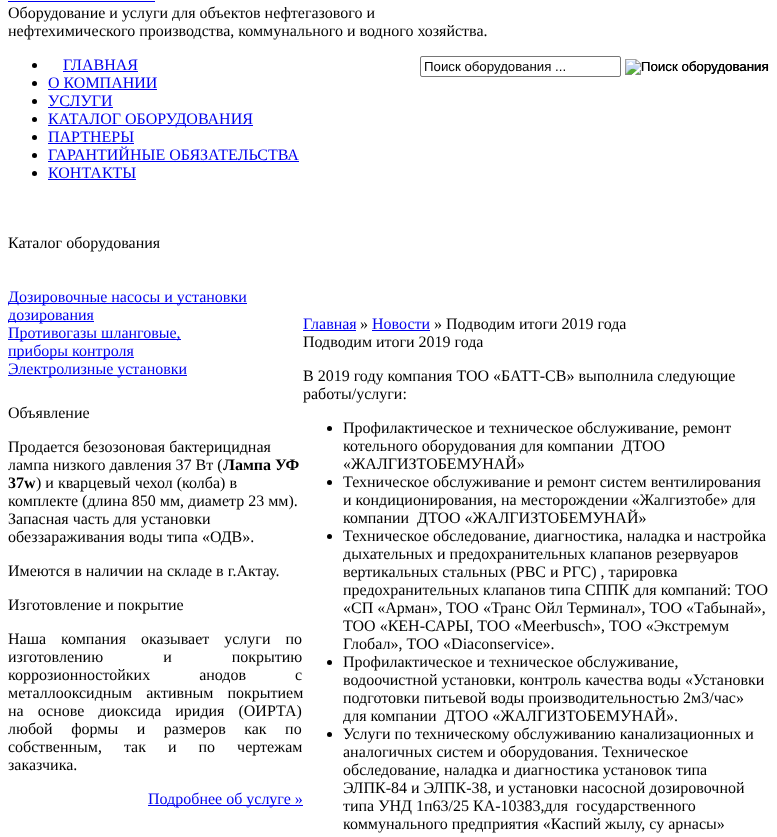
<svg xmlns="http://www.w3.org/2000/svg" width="777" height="837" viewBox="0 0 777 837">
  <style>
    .t1 { font: 16px Liberation Serif; fill: #000; }
    .t2 { font: 16px Liberation Serif; fill: #00e; }
    .t3 { font: 13.25px Liberation Sans; fill: #000; }
    .t4 { font: bold 16px Liberation Serif; fill: #000; }
  </style>
  <rect width="100%" height="100%" fill="#fff"/>
  <rect x="8" y="1" width="147" height="1" fill="#00e"/>
  <text x="8" y="18" class="t1">Оборудование и услуги для объектов нефтегазового и</text>
  <text x="8" y="36" class="t1">нефтехимического производства, коммунального и водного хозяйства.</text>
  <circle cx="34.5" cy="65.5" r="2.5" fill="#000"/>
  <text x="63" y="70" class="t2">ГЛАВНАЯ</text>
  <rect x="63" y="71" width="75" height="1" fill="#00e"/>
  <circle cx="34.5" cy="83.5" r="2.5" fill="#000"/>
  <text x="48" y="88" class="t2">О КОМПАНИИ</text>
  <rect x="48" y="89" width="109" height="1" fill="#00e"/>
  <circle cx="34.5" cy="101.5" r="2.5" fill="#000"/>
  <text x="48" y="106" class="t2">УСЛУГИ</text>
  <rect x="48" y="107" width="65" height="1" fill="#00e"/>
  <circle cx="34.5" cy="119.5" r="2.5" fill="#000"/>
  <rect x="48" y="125" width="205" height="1" fill="#00e"/>
  <text x="48" y="124" class="t2">КАТАЛОГ ОБОРУДОВАНИЯ</text>
  <circle cx="34.5" cy="137.5" r="2.5" fill="#000"/>
  <text x="48" y="142" class="t2">ПАРТНЕРЫ</text>
  <rect x="48" y="143" width="86" height="1" fill="#00e"/>
  <circle cx="34.5" cy="155.5" r="2.5" fill="#000"/>
  <text x="48" y="160" class="t2">ГАРАНТИЙНЫЕ ОБЯЗАТЕЛЬСТВА</text>
  <rect x="48" y="161" width="251" height="1" fill="#00e"/>
  <circle cx="34.5" cy="173.5" r="2.5" fill="#000"/>
  <text x="48" y="178" class="t2">КОНТАКТЫ</text>
  <rect x="48" y="179" width="88" height="1" fill="#00e"/>
  <rect x="420.5" y="56.5" width="200" height="20" rx="1.5" fill="none" stroke="#767676"/>
  <text x="424" y="71" class="t3">Поиск оборудования ...</text>
  <image x="625" y="59" width="144" height="16" href="images/1.png"/>
  <text x="641" y="71" class="t3">Поиск оборудования</text>
  <text x="8" y="248" class="t1">Каталог оборудования</text>
  <rect x="8" y="303" width="239" height="1" fill="#00e"/>
  <text x="8" y="302" class="t2">Дозировочные насосы и установки</text>
  <rect x="8" y="321" width="86" height="1" fill="#00e"/>
  <text x="8" y="320" class="t2">дозирования</text>
  <rect x="8" y="339" width="173" height="1" fill="#00e"/>
  <text x="8" y="338" class="t2">Противогазы шланговые,</text>
  <rect x="8" y="357" width="126" height="1" fill="#00e"/>
  <text x="8" y="356" class="t2">приборы контроля</text>
  <rect x="8" y="375" width="179" height="1" fill="#00e"/>
  <text x="8" y="374" class="t2">Электролизные установки</text>
  <text x="8" y="418" class="t1">Объявление</text>
  <text x="8" y="452" class="t1">Продается безозоновая бактерицидная</text>
  <text x="8" y="470" class="t1">лампа низкого давления 37 Вт (</text>
  <text x="223" y="470" class="t4">Лампа УФ</text>
  <text x="8" y="488" class="t4">37w</text>
  <text x="36" y="488" class="t1">) и кварцевый чехол (колба) в</text>
  <text x="8" y="506" class="t1">комплекте (длина 850 мм, диаметр 23 мм).</text>
  <text x="8" y="524" class="t1">Запасная часть для установки</text>
  <text x="8" y="542" class="t1">обеззараживания воды типа «ОДВ».</text>
  <text x="8" y="576" class="t1">Имеются в наличии на складе в г.Актау.</text>
  <text x="8" y="610" class="t1">Изготовление и покрытие</text>
  <text x="8" y="644" word-spacing="11" class="t1">Наша компания оказывает услуги по</text>
  <text x="8" y="662" word-spacing="56" class="t1">изготовлению и покрытию</text>
  <text x="8" y="680" word-spacing="45" class="t1">коррозионностойких анодов с</text>
  <text x="8" y="698" word-spacing="10" class="t1">металлооксидным активным покрытием</text>
  <text x="8" y="716" word-spacing="10" class="t1">на основе диоксида иридия (ОИРТА)</text>
  <text x="8" y="734" word-spacing="14.5" class="t1">любой формы и размеров как по</text>
  <text x="8" y="752" word-spacing="18" class="t1">собственным, так и по чертежам</text>
  <text x="8" y="770" class="t1">заказчика.</text>
  <rect x="148" y="805" width="155" height="1" fill="#00e"/>
  <text x="148" y="804" class="t2">Подробнее об услуге »</text>
  <text x="303" y="329" class="t2">Главная</text>
  <rect x="303" y="330" width="53" height="1" fill="#00e"/>
  <text x="360" y="329" class="t1">»</text>
  <text x="372" y="329" class="t2">Новости</text>
  <rect x="372" y="330" width="58" height="1" fill="#00e"/>
  <text x="434" y="329" class="t1">» Подводим итоги 2019 года</text>
  <text x="303" y="347" class="t1">Подводим итоги 2019 года</text>
  <text x="303" y="381" class="t1">В 2019 году компания ТОО «БАТТ-СВ» выполнила следующие</text>
  <text x="303" y="399" class="t1">работы/услуги:</text>
  <circle cx="329.5" cy="428.5" r="2.5" fill="#000"/>
  <text x="343" y="433" class="t1">Профилактическое и техническое обслуживание, ремонт</text>
  <text x="343" y="451" class="t1" xml:space="preserve">котельного оборудования для компании  ДТОО</text>
  <text x="343" y="469" class="t1">«ЖАЛГИЗТОБЕМУНАЙ»</text>
  <circle cx="329.5" cy="482.5" r="2.5" fill="#000"/>
  <text x="343" y="487" class="t1">Техническое обслуживание и ремонт систем вентилирования</text>
  <text x="343" y="505" class="t1">и кондиционирования, на месторождении «Жалгизтобе» для</text>
  <text x="343" y="523" class="t1">компании</text>
  <text x="417" y="523" class="t1">ДТОО «ЖАЛГИЗТОБЕМУНАЙ»</text>
  <circle cx="329.5" cy="536.5" r="2.5" fill="#000"/>
  <text x="343" y="541" class="t1">Техническое обследование, диагностика, наладка и настройка</text>
  <text x="343" y="559" class="t1">дыхательных и предохранительных клапанов резервуаров</text>
  <text x="343" y="577" class="t1">вертикальных стальных (РВС и РГС) , тарировка</text>
  <text x="343" y="595" class="t1">предохранительных клапанов типа СППК для компаний: ТОО</text>
  <text x="343" y="613" class="t1">«СП «Арман», ТОО «Транс Ойл Терминал», ТОО «Табынай»,</text>
  <text x="343" y="631" class="t1">ТОО «КЕН-САРЫ, ТОО «Meerbusch», ТОО «Экстремум</text>
  <text x="343" y="649" class="t1">Глобал», ТОО «Diaconservice».</text>
  <circle cx="329.5" cy="662.5" r="2.5" fill="#000"/>
  <text x="343" y="667" class="t1">Профилактическое и техническое обслуживание,</text>
  <text x="343" y="685" class="t1">водоочистной установки, контроль качества воды «Установки</text>
  <text x="343" y="703" class="t1">подготовки питьевой воды производительностью 2м3/час»</text>
  <text x="343" y="721" class="t1" xml:space="preserve">для компании  ДТОО «ЖАЛГИЗТОБЕМУНАЙ».</text>
  <circle cx="329.5" cy="734.5" r="2.5" fill="#000"/>
  <text x="343" y="739" class="t1">Услуги по техническому обслуживанию канализационных и</text>
  <text x="343" y="757" class="t1">аналогичных систем и оборудования. Техническое</text>
  <text x="343" y="775" class="t1">обследование, наладка и диагностика установок типа</text>
  <text x="343" y="793" class="t1">ЭЛПК-84 и ЭЛПК-38, и установки насосной дозировочной</text>
  <text x="343" y="811" class="t1">типа УНД 1п63/25 КА-10383,для</text>
  <text x="576" y="811" class="t1">государственного</text>
  <text x="343" y="829" class="t1">коммунального предприятия «Каспий жылу, су арнасы»</text>
</svg>
